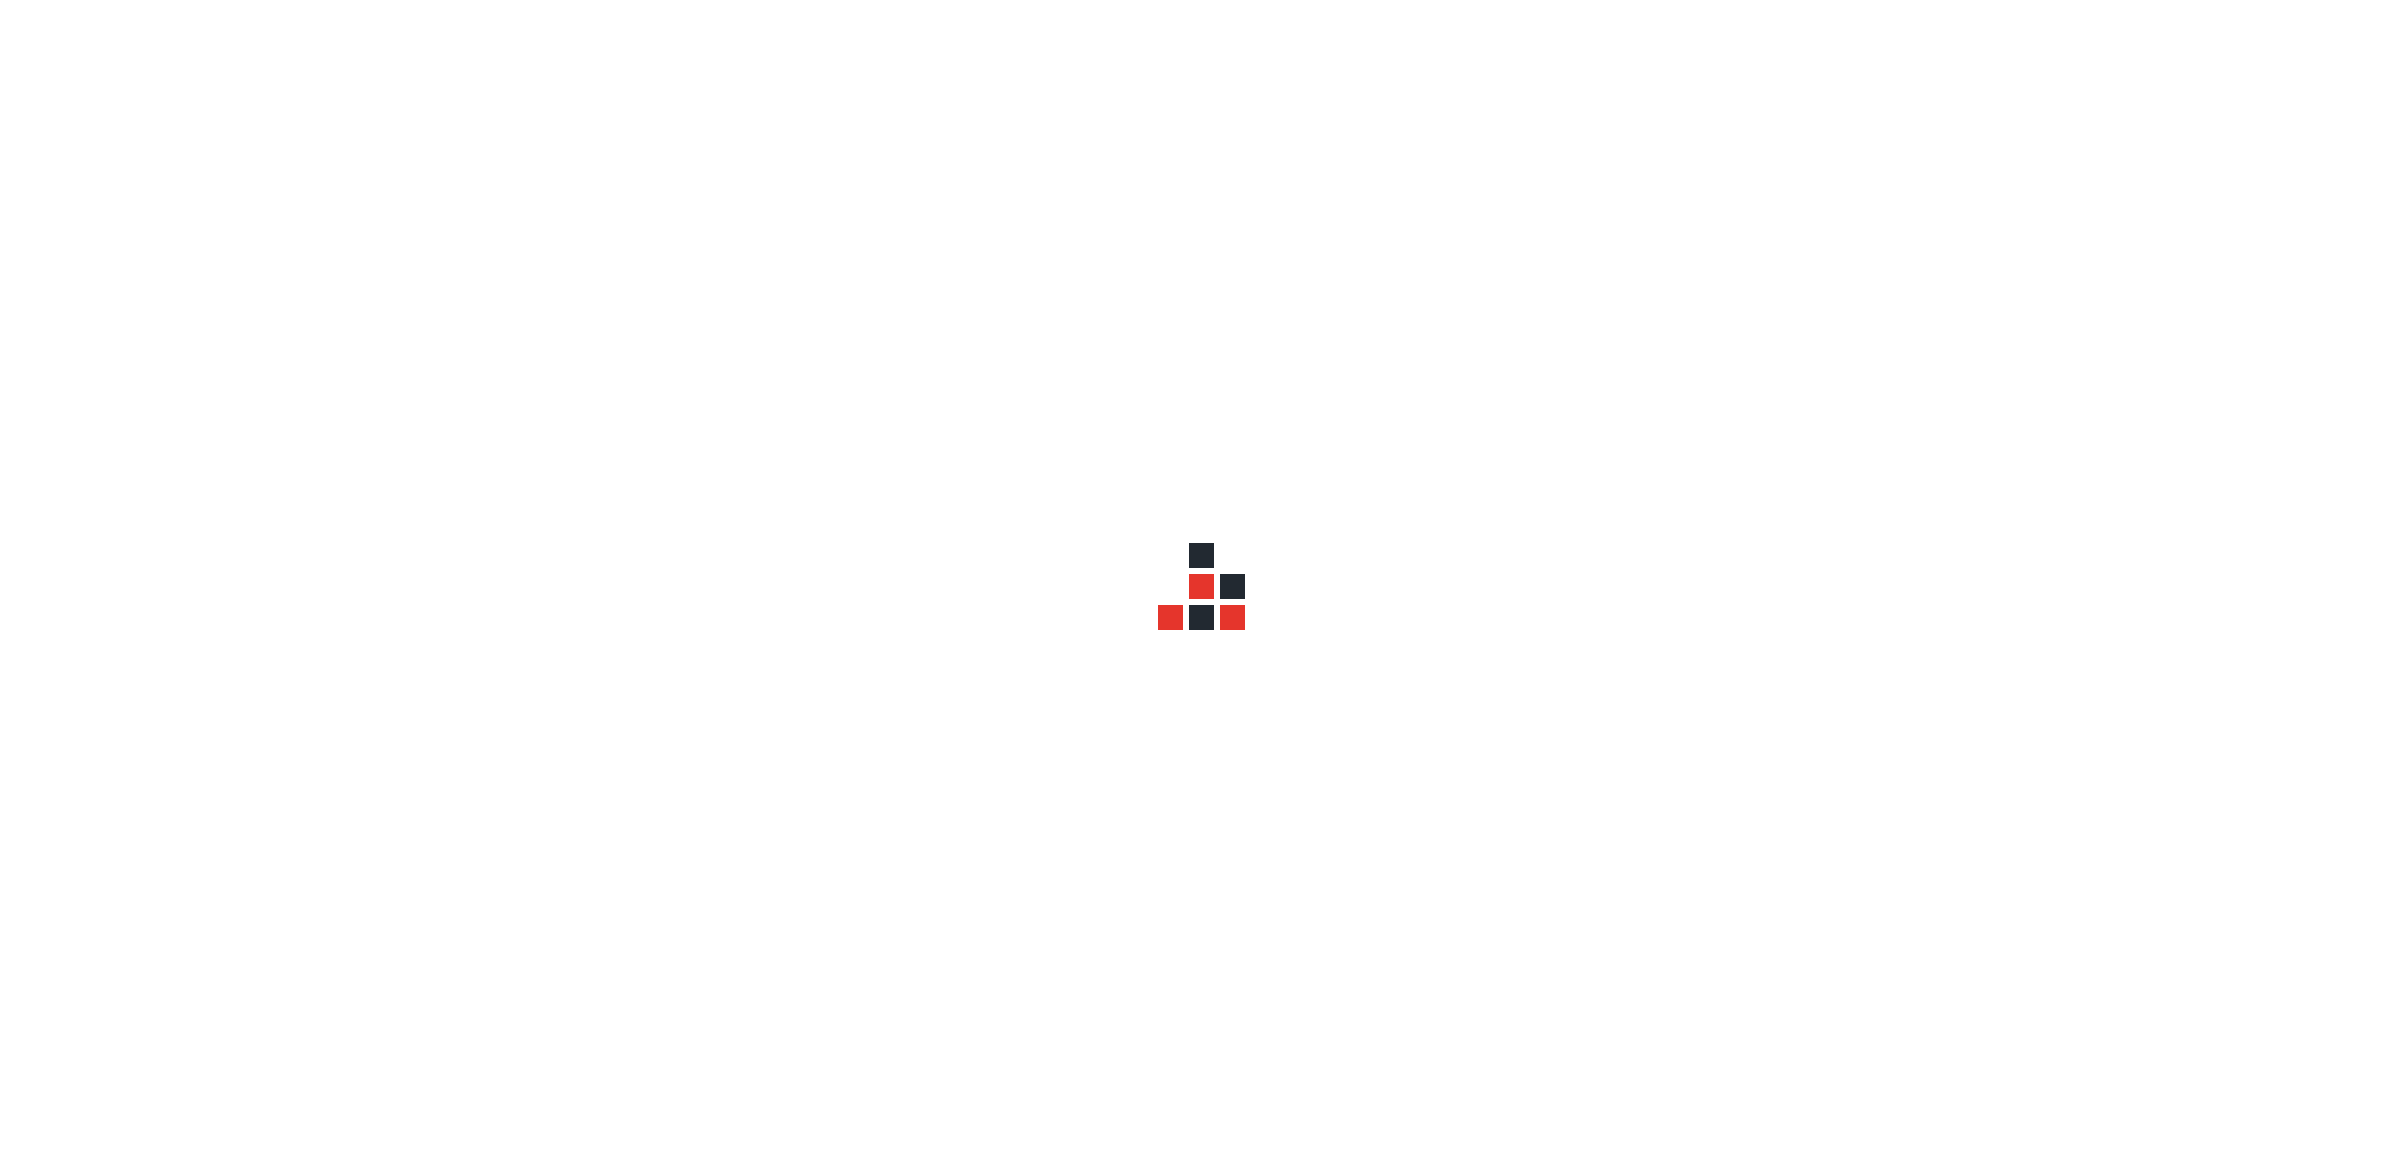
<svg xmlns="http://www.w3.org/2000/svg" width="2402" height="1172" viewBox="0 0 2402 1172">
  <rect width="100%" height="100%" fill="#fff"/>
  <rect x="1189" y="543" width="25" height="25" fill="#222931"/>
  <rect x="1189" y="574" width="25" height="25" fill="#e5352c"/>
  <rect x="1220" y="574" width="25" height="25" fill="#222931"/>
  <rect x="1158" y="605" width="25" height="25" fill="#e5352c"/>
  <rect x="1189" y="605" width="25" height="25" fill="#222931"/>
  <rect x="1220" y="605" width="25" height="25" fill="#e5352c"/>
</svg>
